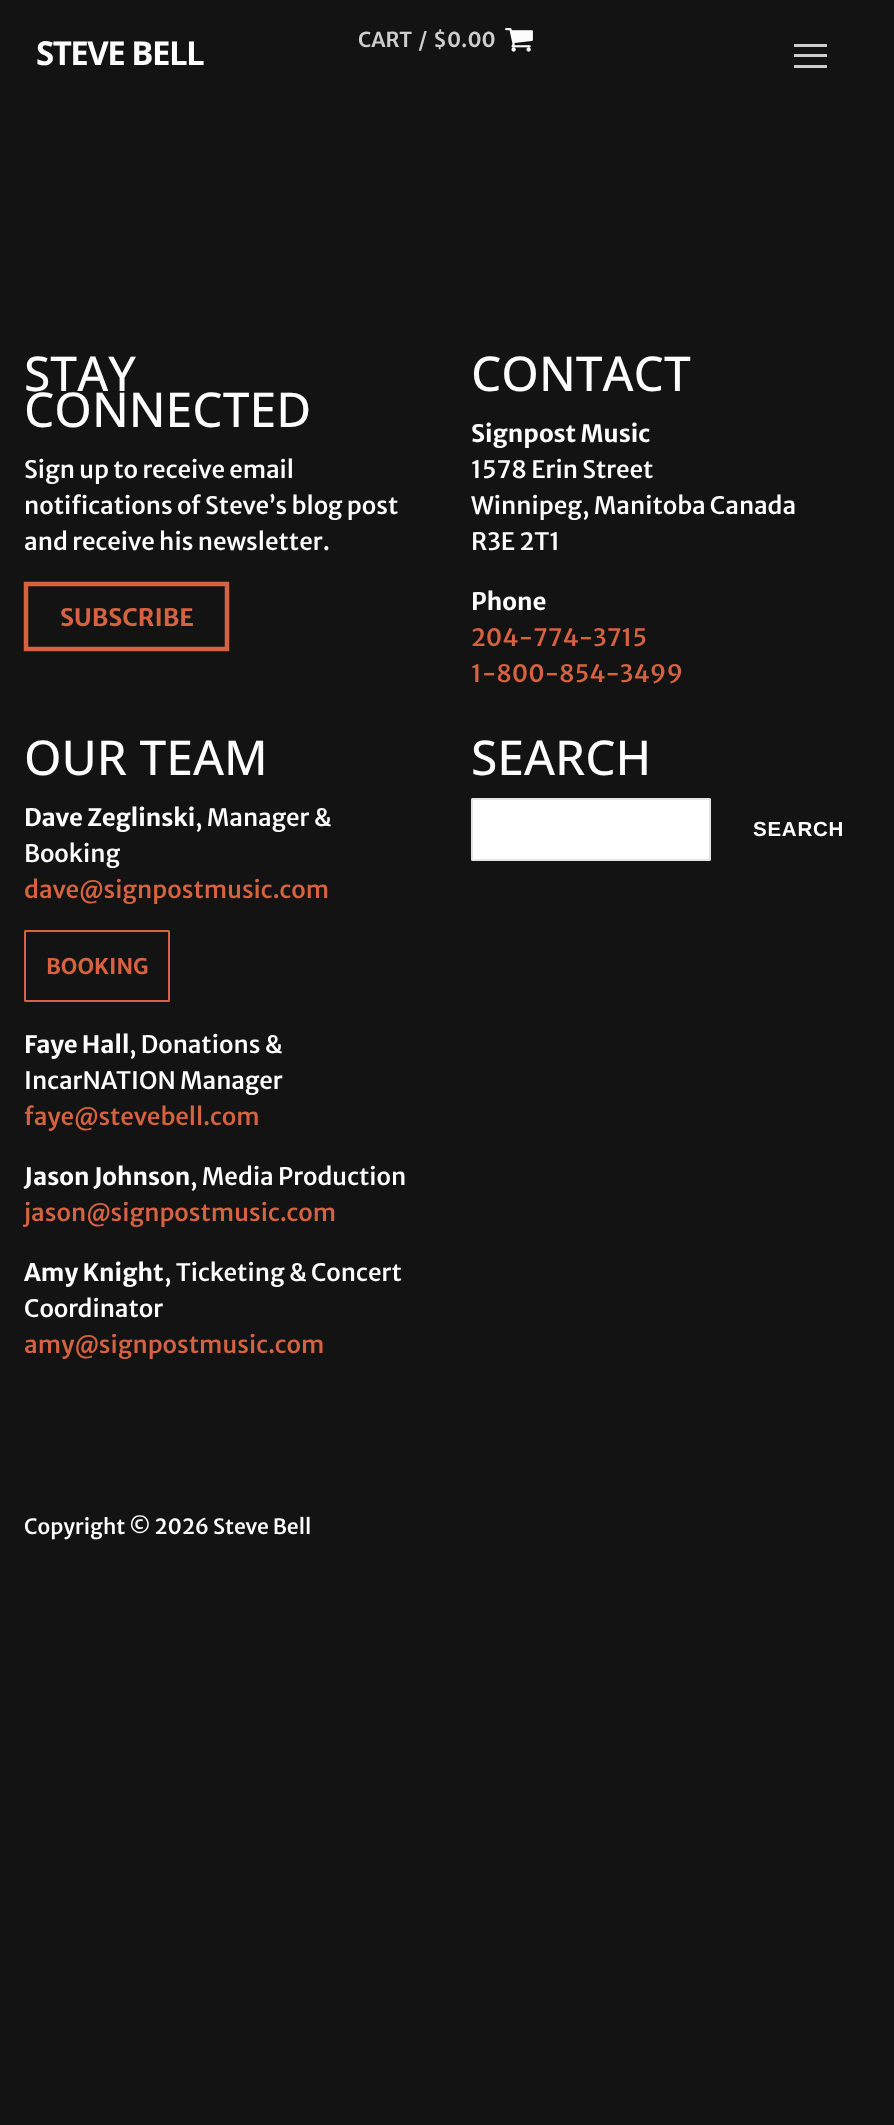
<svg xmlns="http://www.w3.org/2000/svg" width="894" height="2125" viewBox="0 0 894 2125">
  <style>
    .t1 { font: bold 33px Open Sans; letter-spacing: -1.5px; fill: #fdfdfd; }
    .t2 { font: 600 20.5px Merriweather Sans; fill: #cdcdcd; }
    .t3 { font: 500 48px Open Sans; fill: #fdfdfd; }
    .t4 { font: 500 24px Merriweather Sans; fill: #fdfdfd; }
    .t5 { font: bold 24px Merriweather Sans; fill: #d56240; }
    .t6 { font: bold 24px Merriweather Sans; fill: #fdfdfd; }
    .t7 { font: 500 24px Merriweather Sans; fill: #d56240; }
    .t8 { font: bold 21.5px Merriweather Sans; fill: #d56240; }
    .t9 { font: bold 20.5px Liberation Sans; letter-spacing: 0.75px; fill: #fdfdfd; }
    .t10 { font: 500 21px Merriweather Sans; fill: #fdfdfd; }
  </style>
  <rect width="100%" height="100%" fill="#131313"/>
  <text x="36" y="65" class="t1">STEVE BELL</text>
  <text x="358" y="47" class="t2">CART</text>
  <text x="418" y="47" class="t2">/</text>
  <text x="433" y="47" class="t2">$0.00</text>
  <image x="505" y="28" width="28" height="24" href="images/1.png"/>
  <rect x="794" y="54" width="33" height="3" fill="#cdcdcd"/>
  <rect x="794" y="44" width="33" height="3" fill="#cdcdcd"/>
  <rect x="794" y="65" width="33" height="3" fill="#cdcdcd"/>
  <text x="24" y="391" class="t3">STAY</text>
  <text x="24" y="427" class="t3">CONNECTED</text>
  <text x="24" y="478" class="t4">Sign up to receive email</text>
  <text x="24" y="514" class="t4">notifications of Steve’s blog post</text>
  <text x="24" y="550" class="t4">and receive his newsletter.</text>
  <path d="M26 584H227V649H26Z" fill="none" stroke="#d56240" stroke-width="4.5"/>
  <text x="60" y="626" class="t5">SUBSCRIBE</text>
  <text x="471" y="391" class="t3">CONTACT</text>
  <text x="471" y="442" class="t6">Signpost Music</text>
  <text x="471" y="478" class="t4">1578 Erin Street</text>
  <text x="471" y="514" class="t4">Winnipeg, Manitoba Canada</text>
  <text x="471" y="550" class="t4">R3E 2T1</text>
  <text x="471" y="610" class="t6">Phone</text>
  <text x="471" y="646" class="t7">204-774-3715</text>
  <text x="471" y="682" class="t7">1-800-854-3499</text>
  <text x="24" y="775" class="t3">OUR TEAM</text>
  <text x="24" y="826" class="t6">Dave Zeglinski</text>
  <text x="195" y="826" class="t4">, Manager &amp;</text>
  <text x="24" y="862" class="t4">Booking</text>
  <text x="24" y="898" class="t7">dave@signpostmusic.com</text>
  <rect x="25" y="931" width="144" height="70" rx="0.5" fill="none" stroke="#d56240" stroke-width="2"/>
  <text x="46" y="974" class="t8">BOOKING</text>
  <text x="24" y="1053" class="t6">Faye Hall</text>
  <text x="129" y="1053" class="t4">, Donations &amp;</text>
  <text x="24" y="1089" class="t4">IncarNATION Manager</text>
  <text x="24" y="1125" class="t7">faye@stevebell.com</text>
  <text x="24" y="1185" class="t6">Jason Johnson</text>
  <text x="190" y="1185" class="t4">, Media Production</text>
  <text x="24" y="1221" class="t7">jason@signpostmusic.com</text>
  <text x="24" y="1281" class="t6">Amy Knight</text>
  <text x="164" y="1281" class="t4">, Ticketing &amp; Concert</text>
  <text x="24" y="1317" class="t4">Coordinator</text>
  <text x="24" y="1353" class="t7">amy@signpostmusic.com</text>
  <text x="471" y="775" class="t3">SEARCH</text>
  <rect x="472" y="799" width="238" height="61" rx="0.5" fill="#fff" stroke="#e5e5e5" stroke-width="2"/>
  <text x="753" y="836" class="t9">SEARCH</text>
  <text x="24" y="1534" class="t10">Copyright © 2026 Steve Bell</text>
</svg>
